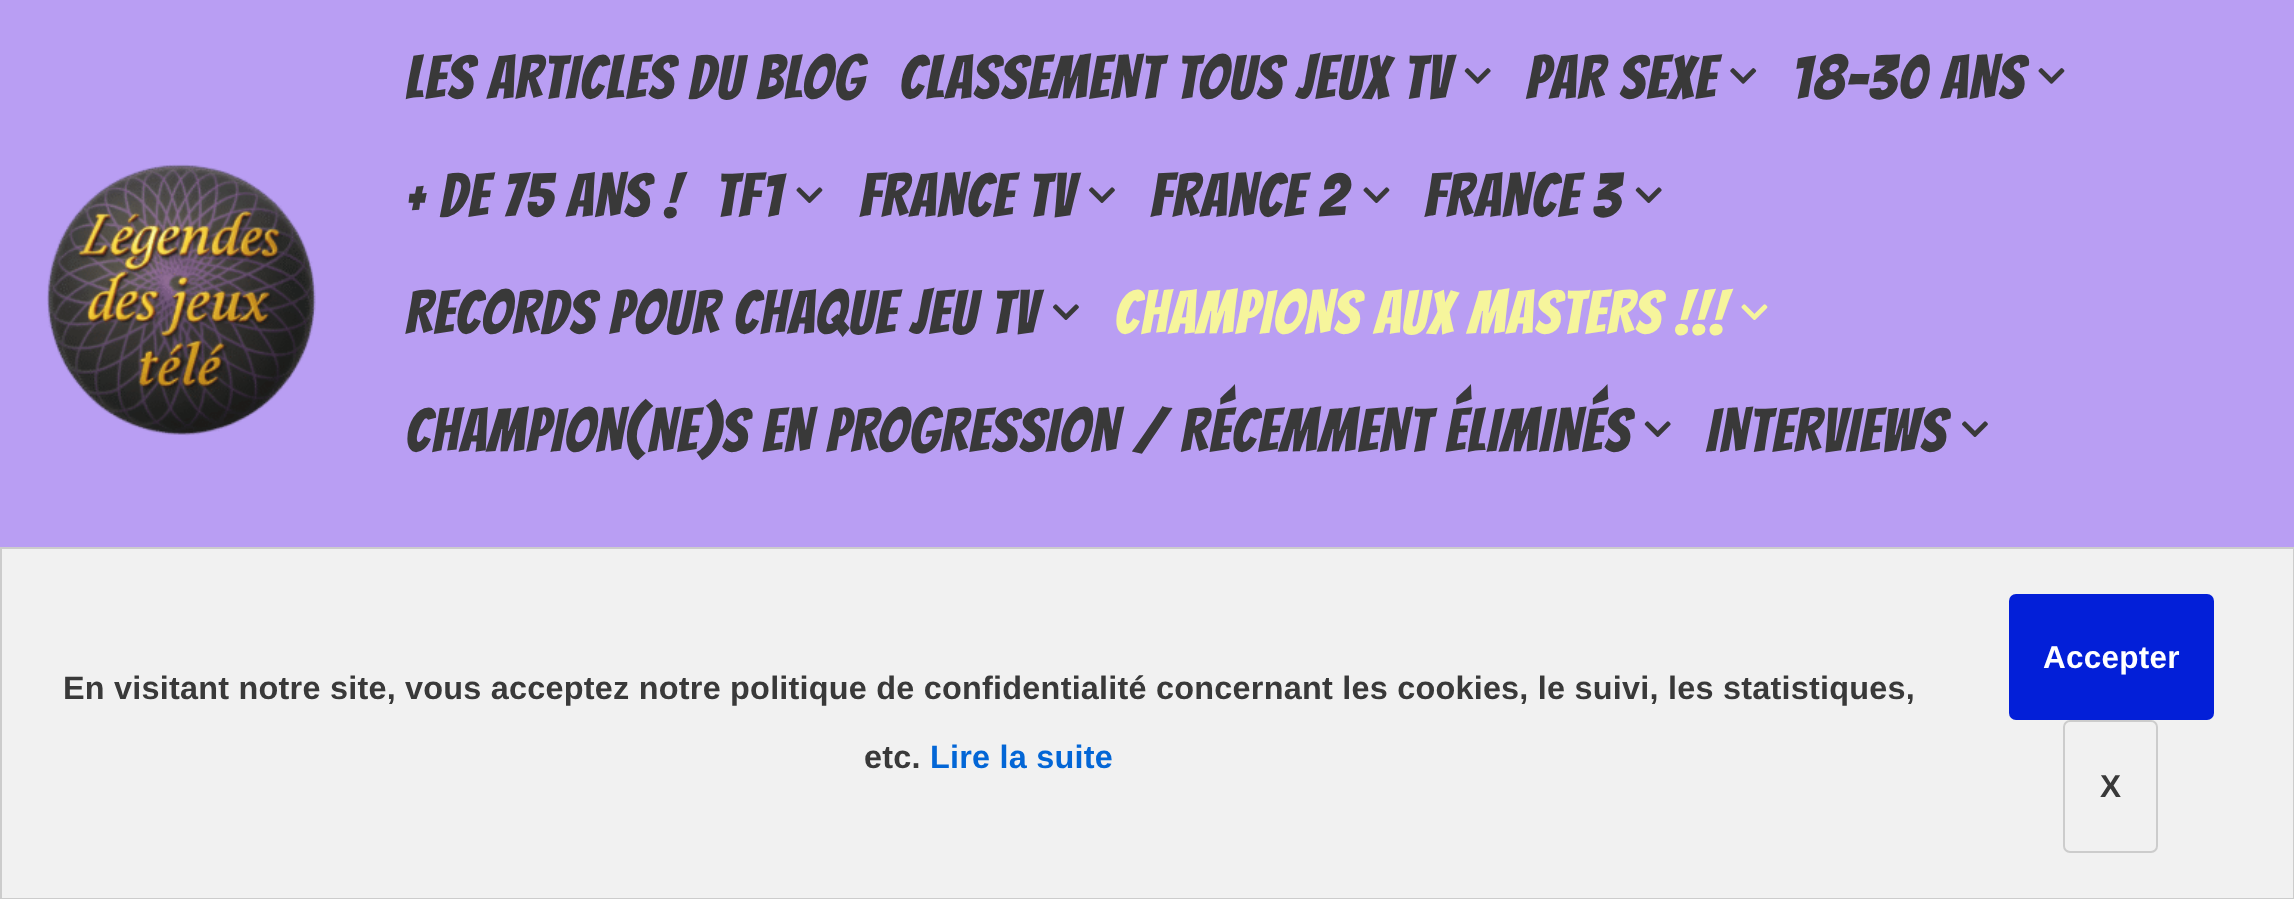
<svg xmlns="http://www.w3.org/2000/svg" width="2294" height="899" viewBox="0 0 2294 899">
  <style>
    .t1 { font: 60.75px Bangers; letter-spacing: 1.35px; fill: #393939; }
    .t2 { font: 60.75px Bangers; letter-spacing: 1.35px; fill: #f6f59c; }
    .t3 { font: bold 32.4px Liberation Sans; letter-spacing: 0.23px; fill: #393939; }
    .t4 { font: bold 32.4px Liberation Sans; letter-spacing: 0.23px; fill: #0366d6; }
    .t5 { font: bold 31.5px Liberation Sans; letter-spacing: 0.23px; fill: #fff; }
    .t6 { font: bold 31.5px Liberation Sans; letter-spacing: 0.23px; fill: #393939; }
  </style>
  <rect width="100%" height="100%" fill="#b99ef3"/>
  <image x="47" y="164" width="269" height="272" href="images/1.png"/>
  <text x="405" y="99" class="t1">LES ARTICLES DU BLOG</text>
  <text x="899" y="99" class="t1">CLASSEMENT TOUS JEUX TV</text>
  <image x="1464" y="68" width="27" height="16" href="images/2.png"/>
  <text x="1526" y="99" class="t1">PAR SEXE</text>
  <image x="1730" y="68" width="27" height="16" href="images/3.png"/>
  <text x="1792" y="99" class="t1">18-30 ANS</text>
  <image x="2038" y="68" width="27" height="16" href="images/4.png"/>
  <text x="405" y="217" class="t1">+ DE 75 ANS !</text>
  <text x="715" y="217" class="t1">TF1</text>
  <image x="796" y="187" width="27" height="16" href="images/5.png"/>
  <text x="859" y="217" class="t1">FRANCE TV</text>
  <image x="1089" y="187" width="26" height="16" href="images/6.png"/>
  <text x="1150" y="217" class="t1">FRANCE 2</text>
  <image x="1363" y="187" width="27" height="16" href="images/5.png"/>
  <text x="1424" y="217" class="t1">FRANCE 3</text>
  <image x="1635" y="187" width="27" height="16" href="images/7.png"/>
  <text x="405" y="334" class="t1">RECORDS POUR CHAQUE JEU TV</text>
  <image x="1053" y="304" width="26" height="16" href="images/6.png"/>
  <text x="1114" y="334" class="t2">CHAMPIONS AUX MASTERS !!!</text>
  <image x="1741" y="304" width="27" height="16" href="images/8.png"/>
  <text x="405" y="452" class="t1">CHAMPION(NE)S EN PROGRESSION / RÉCEMMENT ÉLIMINÉS</text>
  <image x="1644" y="421" width="27" height="16" href="images/7.png"/>
  <text x="1706" y="452" class="t1">INTERVIEWS</text>
  <image x="1962" y="421" width="26" height="16" href="images/6.png"/>
  <rect x="1" y="548" width="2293" height="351" fill="#f1f1f1" stroke="#ccc" stroke-width="2"/>
  <text x="63" y="699" class="t3">En visitant notre site, vous acceptez notre politique de confidentialité concernant les cookies, le suivi, les statistiques,</text>
  <text x="864" y="768" class="t3">etc.</text>
  <text x="930" y="768" class="t4">Lire la suite</text>
  <rect x="2009" y="594" width="205" height="126" rx="7" fill="#031fd8"/>
  <text x="2043" y="668" class="t5">Accepter</text>
  <rect x="2064" y="721" width="93" height="131" rx="6" fill="none" stroke="#ccc" stroke-width="2"/>
  <text x="2100" y="797" class="t6">X</text>
</svg>
